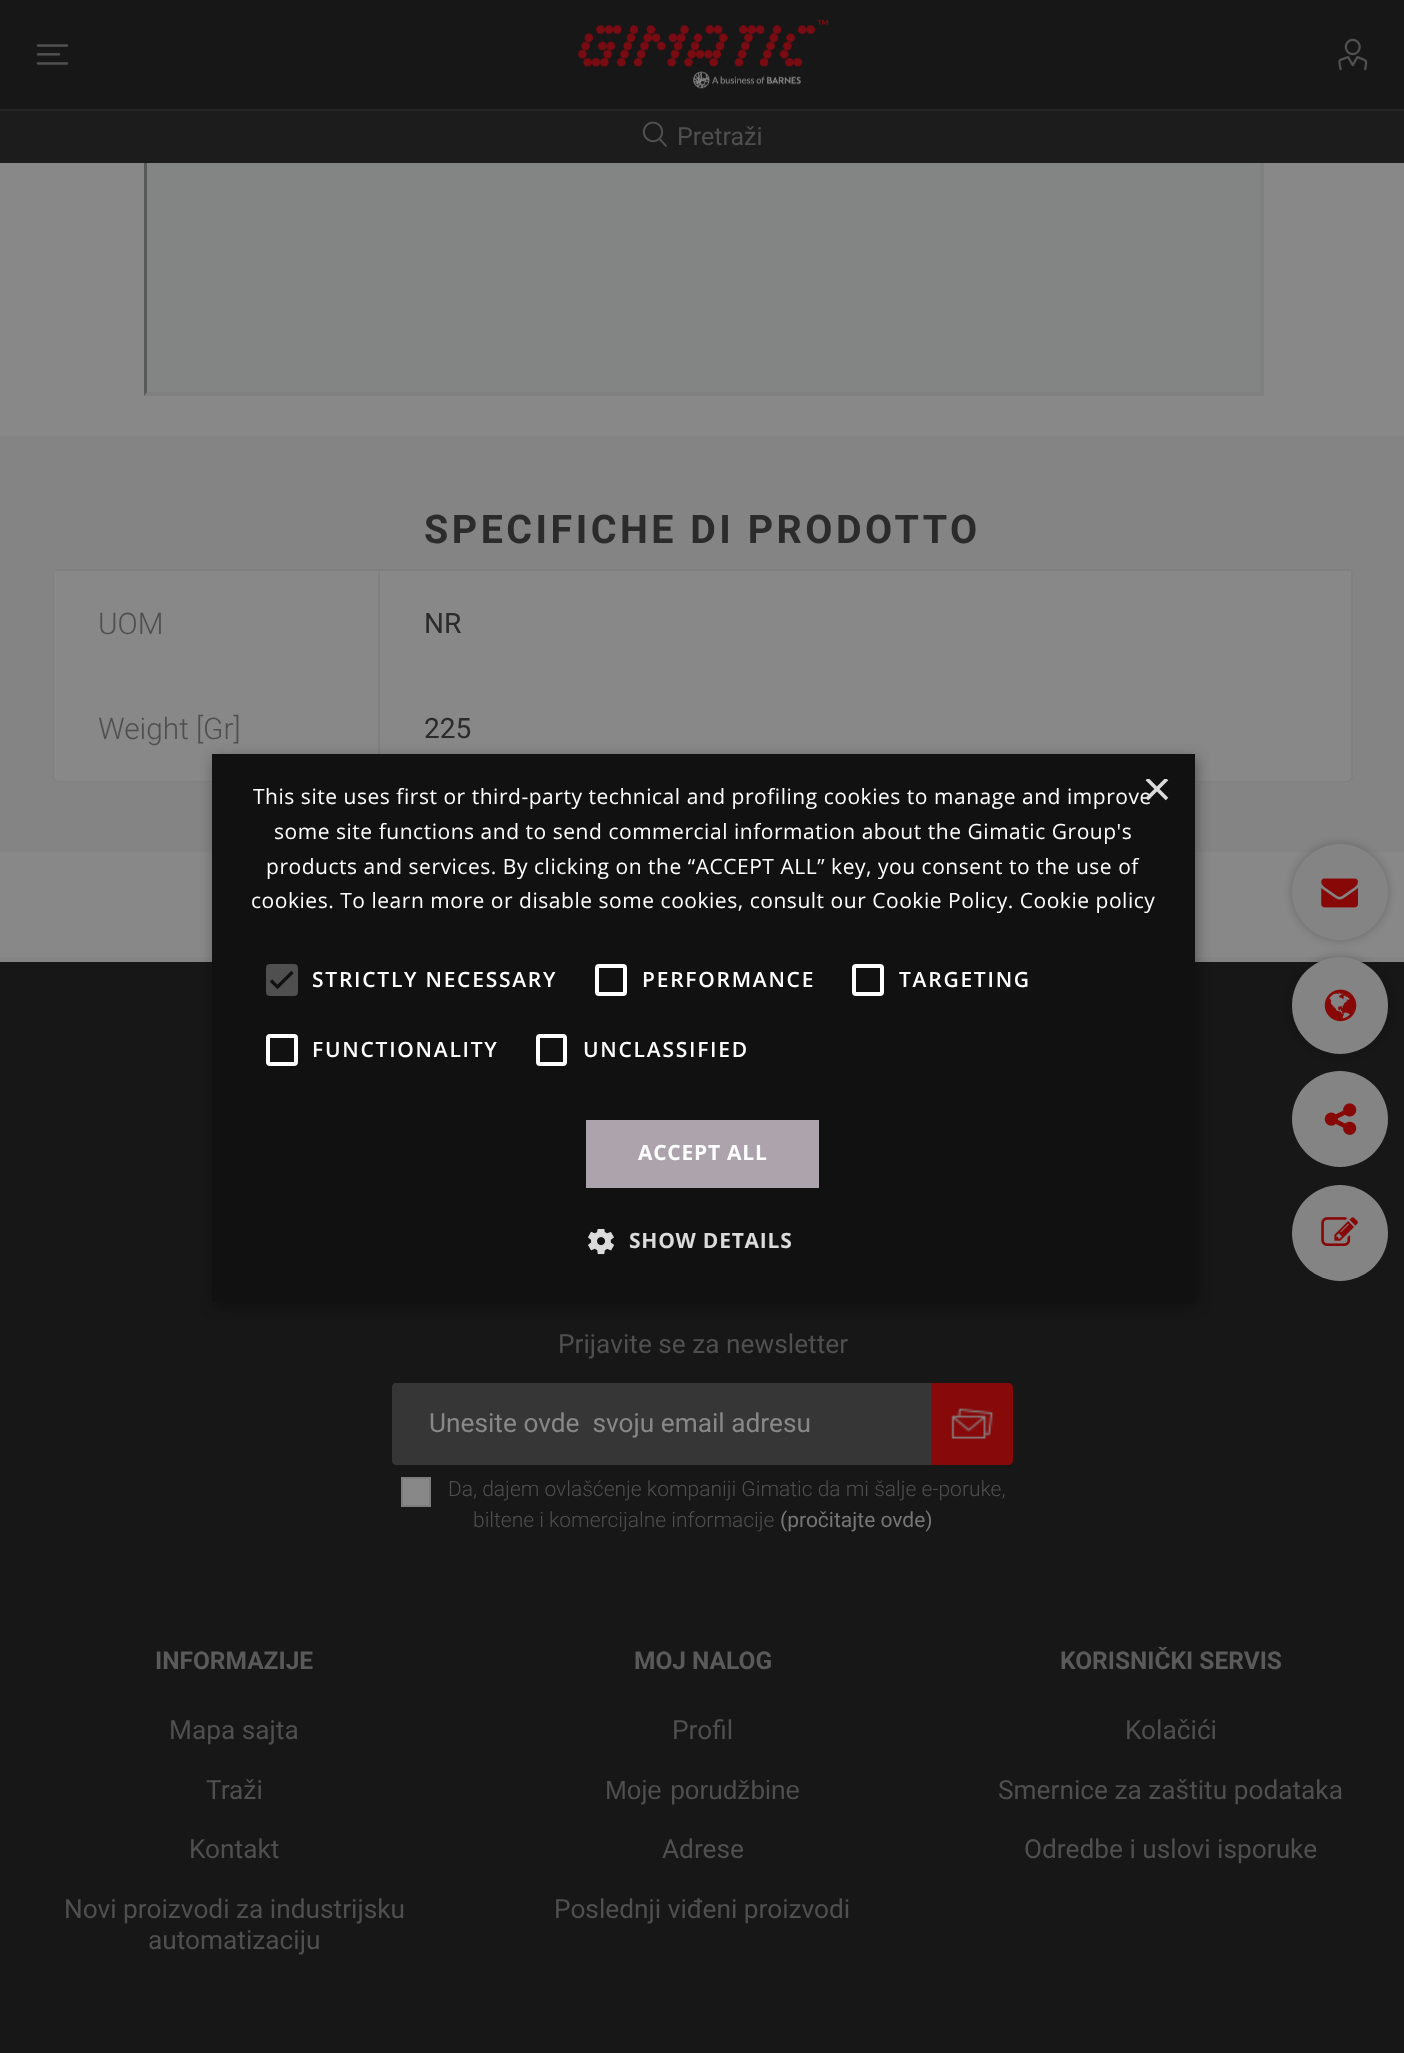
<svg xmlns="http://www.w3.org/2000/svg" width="1404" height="2053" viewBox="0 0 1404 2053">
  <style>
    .t1 { font: 25px Roboto; fill: #4f4f4f; }
    .t2 { font: bold 39.4px Roboto; letter-spacing: 3.5px; fill: #2b2b2b; }
    .t3 { font: 300 29.75px Roboto; fill: #4f4f4f; }
    .t4 { font: 28px Roboto; fill: #2b2b2b; }
    .t5 { font: 26.25px Roboto; fill: #4f4f4f; }
    .t6 { font: 26.25px Roboto; fill: #888; }
    .t7 { font: 300 21px Roboto; fill: #4f4f4f; }
    .t8 { font: 21px Roboto; fill: #777; }
    .t9 { font: bold 24.5px Roboto; fill: #5a5a5a; }
    .t10 { font: 26.25px Liberation Sans; fill: #4f4f4f; }
    .t11 { font: 21px Open Sans; letter-spacing: 0.53px; fill: #fff; }
    .t12 { font: 51px Liberation Sans; fill: #dbdbdb; }
    .t13 { font: 600 21px Open Sans; letter-spacing: 1.75px; fill: #fff; }
    .t14 { font: bold 21px Open Sans; letter-spacing: 0.75px; fill: #fff; }
    .t15 { font: bold 21px Open Sans; letter-spacing: 0.75px; fill: #dbdbdb; }
  </style>
  <defs>
    <clipPath id="clip1"><rect x="392" y="1383" width="621" height="150"/></clipPath>
    <clipPath id="clip2"><rect x="0" y="1647" width="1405" height="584"/></clipPath>
    <clipPath id="clip3"><rect x="1143" y="779" width="26" height="26"/></clipPath>
  </defs>
  <rect width="100%" height="100%" fill="#888"/>
  <path d="M1264-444V396L1260 392V-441Z" fill="#808080"/>
  <path d="M1264 396H144L147 392H1260Z" fill="#808080"/>
  <path d="M144 396V-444L147-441V392Z" fill="#585858"/>
  <rect x="0" y="0" width="1404" height="109" fill="#171717"/>
  <image x="36" y="44" width="33" height="21" href="images/1.png"/>
  <image x="578" y="19" width="251" height="70" href="images/2.png"/>
  <image x="1338" y="38" width="30" height="33" href="images/3.png"/>
  <rect x="0" y="111" width="1404" height="52" fill="#1c1c1c"/>
  <rect x="0" y="109" width="1404" height="2" fill="#262626"/>
  <image x="642" y="121" width="25" height="26" href="images/4.png"/>
  <text x="677" y="145" class="t1">Pretraži</text>
  <rect x="147" y="163" width="1113" height="229" fill="#838484"/>
  <rect x="0" y="436" width="1404" height="416" fill="#848484"/>
  <text x="424" y="543" class="t2">SPECIFICHE DI PRODOTTO</text>
  <rect x="54" y="570" width="1298" height="211" rx="4" fill="none" stroke="#808080" stroke-width="2"/>
  <rect x="54" y="571" width="324" height="105" fill="#888"/>
  <text x="98" y="634" class="t3">UOM</text>
  <rect x="380" y="571" width="971" height="105" fill="#888"/>
  <rect x="378" y="571" width="2" height="105" fill="#808080"/>
  <text x="424" y="633" class="t4">NR</text>
  <path d="M54 676H378V781H59C56 781 54 779 54 776Z" fill="#888"/>
  <text x="98" y="739" class="t3">Weight [Gr]</text>
  <path d="M378 676H1351V776C1351 779 1349 781 1346 781H378Z" fill="#888"/>
  <rect x="378" y="676" width="2" height="78" fill="#808080"/>
  <text x="424" y="738" class="t4">225</text>
  <rect x="1292" y="844" width="96" height="96" rx="48" fill="#09090940" filter="blur(4.5px)"/>
  <circle cx="1340" cy="892" r="48" fill="#848484"/>
  <image x="1321" y="878" width="37" height="30" href="images/5.png"/>
  <rect x="0" y="962" width="1404" height="1091" fill="#171717"/>
  <rect x="0" y="957" width="1404" height="5" fill="#848484"/>
  <rect x="1292" y="957" width="96" height="97" rx="48" fill="#09090940" filter="blur(4.5px)"/>
  <rect x="1292" y="957" width="96" height="97" rx="48" fill="#848484"/>
  <image x="1324" y="989" width="33" height="33" href="images/6.png"/>
  <circle cx="1340" cy="1119" r="48" fill="#848484"/>
  <image x="1324" y="1103" width="33" height="32" href="images/7.png"/>
  <circle cx="1340" cy="1233" r="48" fill="#848484"/>
  <image x="1321" y="1217" width="37" height="29" href="images/8.png"/>
  <text x="558" y="1353" class="t5">Prijavite se za newsletter</text>
  <path d="M397 1383H931V1465H397C394 1465 392 1463 392 1460V1388C392 1385 394 1383 397 1383Z" fill="#363636"/>
  <g clip-path="url(#clip1)">
    <path d="M397 1382H931V1465H397C394 1465 392 1462 392 1460V1388C392 1385 394 1382 397 1382ZM397 1384H931V1463H397C395 1463 394 1461 394 1460V1388C394 1386 395 1384 397 1384Z" fill="#363636" fill-rule="evenodd"/>
  </g>
  <text x="429" y="1432" class="t6" xml:space="preserve">Unesite ovde  svoju email adresu</text>
  <path d="M931 1383H1008C1011 1383 1013 1385 1013 1388V1460C1013 1463 1011 1465 1008 1465H931Z" fill="#880909"/>
  <image x="951" y="1408" width="42" height="31" href="images/9.png"/>
  <rect x="402" y="1478" width="28" height="28" fill="#888" stroke="#7c7c7c" stroke-width="2"/>
  <text x="448" y="1496" class="t7">Da, dajem ovlašćenje kompaniji Gimatic da mi šalje e-poruke,</text>
  <text x="473" y="1527" class="t7">biltene i komercijalne informacije</text>
  <text x="780" y="1527" class="t8">(pročitajte ovde)</text>
  <text x="155" y="1669" class="t9">INFORMAZIJE</text>
  <text x="169" y="1739" class="t5">Mapa sajta</text>
  <text x="206" y="1799" class="t5">Traži</text>
  <text x="189" y="1858" class="t5">Kontakt</text>
  <text x="64" y="1918" class="t5">Novi proizvodi za industrijsku</text>
  <text x="148" y="1949" class="t5">automatizaciju</text>
  <text x="634" y="1669" class="t9">MOJ NALOG</text>
  <text x="672" y="1739" class="t5">Profil</text>
  <text x="605" y="1799" word-spacing="1" class="t10">Moje porudžbine</text>
  <text x="662" y="1858" class="t5">Adrese</text>
  <text x="554" y="1918" class="t5">Poslednji viđeni proizvodi</text>
  <g clip-path="url(#clip2)">
    <text x="1060" y="1669" class="t9">KORISNIČKI SERVIS</text>
  </g>
  <text x="1125" y="1739" class="t5">Kolačići</text>
  <text x="998" y="1799" class="t5">Smernice za zaštitu podataka</text>
  <text x="1024" y="1858" class="t5">Odredbe i uslovi isporuke</text>
  <rect x="214" y="758" width="983" height="548" fill="#00000059" filter="blur(7px)"/>
  <rect x="212" y="754" width="983" height="548" fill="#111"/>
  <text x="253" y="804" class="t11">This site uses first or third-party technical and profiling cookies to manage and improve</text>
  <text x="274" y="839" class="t11">some site functions and to send commercial information about the Gimatic Group's</text>
  <text x="266" y="874" class="t11">products and services. By clicking on the “ACCEPT ALL” key, you consent to the use of</text>
  <text x="251" y="908" class="t11">cookies. To learn more or disable some cookies, consult our Cookie Policy. Cookie policy</text>
  <g clip-path="url(#clip3)">
    <text x="1142" y="806" class="t12">×</text>
  </g>
  <rect x="266" y="964" width="32" height="32" rx="4" fill="#4f4f4f"/>
  <path d="M271 980.5L277.5 987L292.5 972" fill="none" stroke="#111" stroke-width="3.2"/>
  <text x="312" y="987" class="t13">STRICTLY NECESSARY</text>
  <rect x="597" y="966" width="28" height="28" rx="2" fill="none" stroke="#fff" stroke-width="4"/>
  <text x="642" y="987" class="t13">PERFORMANCE</text>
  <rect x="854" y="966" width="28" height="28" rx="2" fill="none" stroke="#fff" stroke-width="4"/>
  <text x="899" y="987" class="t13">TARGETING</text>
  <rect x="268" y="1036" width="28" height="28" rx="2" fill="none" stroke="#fff" stroke-width="4"/>
  <text x="312" y="1057" class="t13">FUNCTIONALITY</text>
  <rect x="538" y="1036" width="27" height="28" rx="2" fill="none" stroke="#fff" stroke-width="4"/>
  <text x="583" y="1057" class="t13">UNCLASSIFIED</text>
  <rect x="586" y="1120" width="233" height="68" fill="#ada3ad"/>
  <text x="638" y="1160" class="t14">ACCEPT ALL</text>
  <image x="588" y="1229" width="26" height="26" href="images/10.png"/>
  <text x="629" y="1248" class="t15">SHOW DETAILS</text>
</svg>
